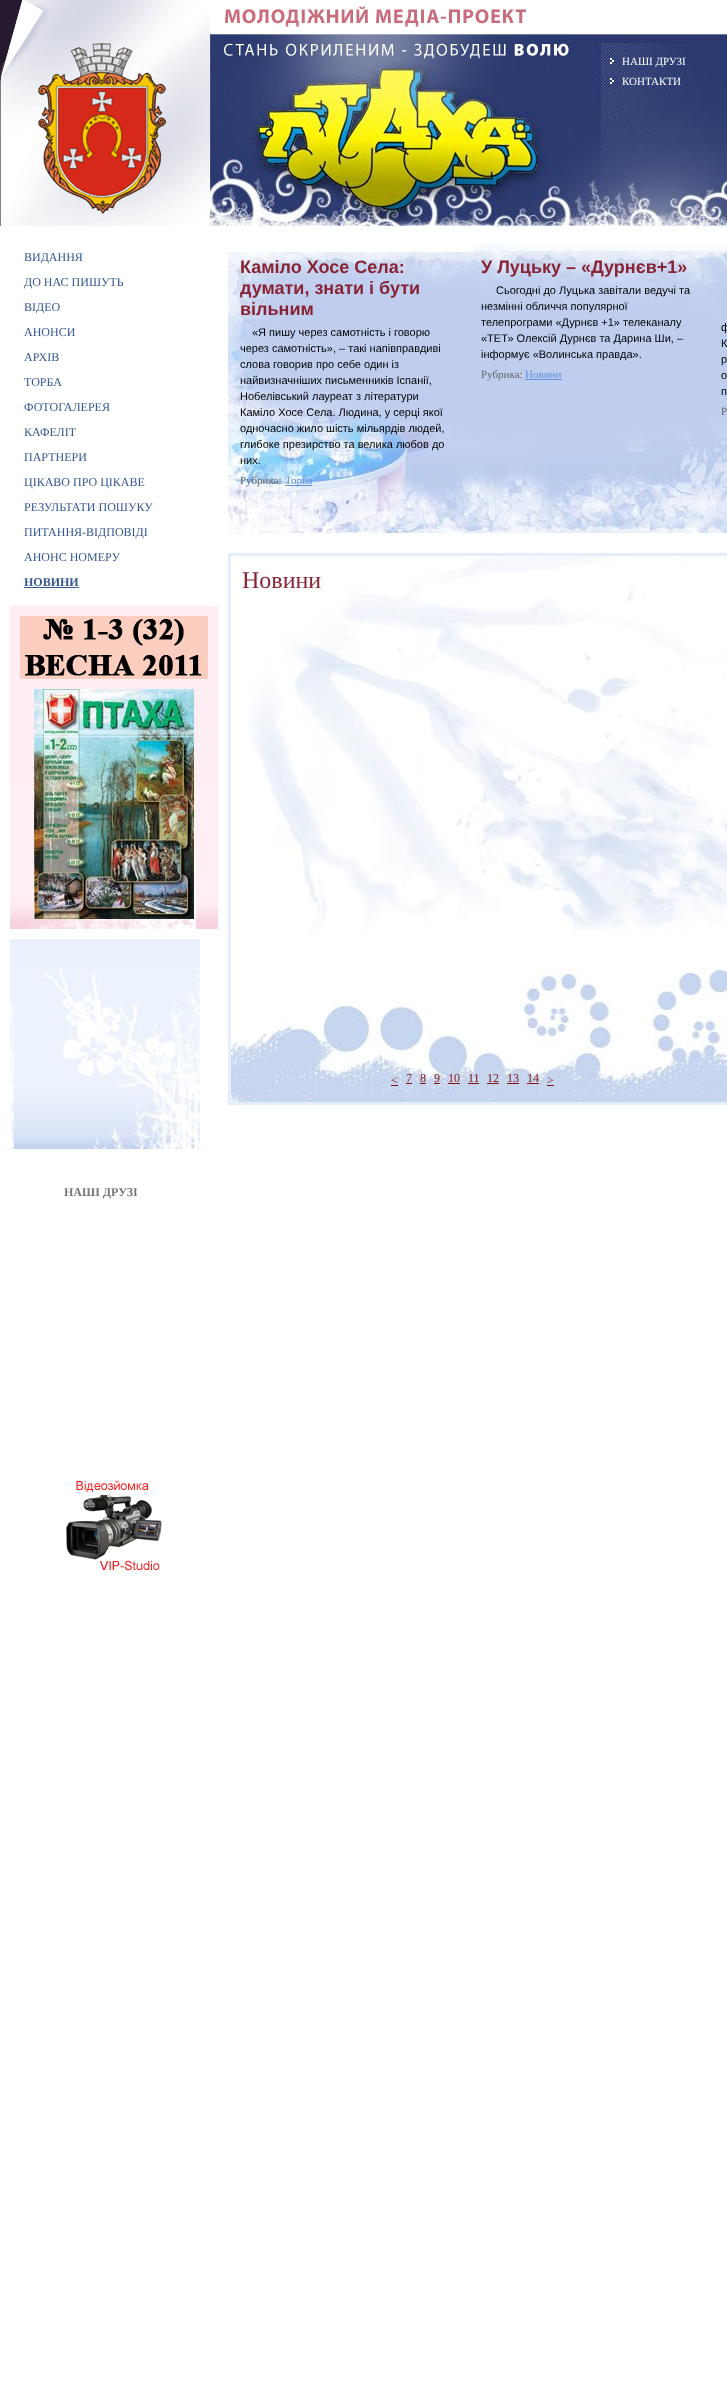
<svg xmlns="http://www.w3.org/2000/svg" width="727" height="2394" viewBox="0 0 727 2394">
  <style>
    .t1 { font: 11px Liberation Serif; fill: #fff; }
    .t2 { font: 12px Liberation Serif; fill: #355792; }
    .t3 { font: bold 12px Liberation Serif; fill: #355792; }
    .t4 { font: bold 12px Liberation Serif; fill: #777; }
    .t5 { font: bold 18px Liberation Sans; fill: #882334; }
    .t6 { font: 11px Liberation Sans; fill: #000; }
    .t7 { font: 11px Liberation Serif; fill: #666; }
    .t8 { font: 11px Liberation Serif; fill: #628ee0; }
    .t9 { font: 24px Liberation Serif; fill: #882334; }
    .t10 { font: 12px Liberation Serif; fill: #821414; }
  </style>
  <rect width="100%" height="100%" fill="#fff"/>
  <image x="0" y="0" width="210" height="226" href="images/1.png"/>
  <image x="225" y="6" width="301" height="21" href="images/2.png"/>
  <image x="210" y="34" width="362" height="28" href="images/3.png"/>
  <image x="210" y="62" width="362" height="164" href="images/4.png"/>
  <image x="572" y="34" width="155" height="192" href="images/5.png"/>
  <image x="610" y="58" width="4" height="6" href="images/6.png"/>
  <text x="622" y="65" class="t1">НАШІ ДРУЗІ</text>
  <image x="610" y="78" width="4" height="6" href="images/7.png"/>
  <text x="622" y="85" class="t1">КОНТАКТИ</text>
  <text x="24" y="261" class="t2">ВИДАННЯ</text>
  <text x="24" y="286" class="t2">ДО НАС ПИШУТЬ</text>
  <text x="24" y="311" class="t2">ВІДЕО</text>
  <text x="24" y="336" class="t2">АНОНСИ</text>
  <text x="24" y="361" class="t2">АРХІВ</text>
  <text x="24" y="386" class="t2">ТОРБА</text>
  <text x="24" y="411" class="t2">ФОТОГАЛЕРЕЯ</text>
  <text x="24" y="436" class="t2">КАФЕЛІТ</text>
  <text x="24" y="461" class="t2">ПАРТНЕРИ</text>
  <text x="24" y="486" class="t2">ЦІКАВО ПРО ЦІКАВЕ</text>
  <text x="24" y="511" class="t2">РЕЗУЛЬТАТИ ПОШУКУ</text>
  <text x="24" y="536" class="t2">ПИТАННЯ-ВІДПОВІДІ</text>
  <text x="24" y="561" class="t2">АНОНС НОМЕРУ</text>
  <text x="24" y="586" class="t3">НОВИНИ</text>
  <rect x="24" y="587" width="55" height="1" fill="#355792"/>
  <rect x="10" y="606" width="208" height="179" fill="#feeef4"/>
  <image x="10" y="785" width="208" height="144" href="images/8.png"/>
  <image x="20" y="616" width="188" height="63" href="images/9.png"/>
  <image x="34" y="689" width="160" height="230" href="images/10.png"/>
  <rect x="10" y="939" width="190" height="29" fill="#ecf2fd"/>
  <image x="10" y="968" width="190" height="181" href="images/11.png"/>
  <text x="64" y="1196" class="t4">НАШІ ДРУЗІ</text>
  <image x="66" y="1480" width="96" height="92" href="images/12.png"/>
  <image x="228" y="243" width="499" height="293" href="images/13.png"/>
  <text x="240" y="273" class="t5">Каміло Хосе Села:</text>
  <text x="240" y="294" class="t5">думати, знати і бути</text>
  <text x="240" y="315" class="t5">вільним</text>
  <text x="252" y="336" class="t6">«Я пишу через самотність і говорю</text>
  <text x="240" y="352" class="t6">через самотність», – такі напівправдиві</text>
  <text x="240" y="368" class="t6">слова говорив про себе один із</text>
  <text x="240" y="384" class="t6">найвизначніших письменників Іспанії,</text>
  <text x="240" y="400" class="t6">Нобелівський лауреат з літератури</text>
  <text x="240" y="416" class="t6">Каміло Хосе Села. Людина, у серці якої</text>
  <text x="240" y="432" class="t6">одночасно жило шість мільярдів людей,</text>
  <text x="240" y="448" class="t6">глибоке презирство та велика любов до</text>
  <text x="240" y="464" class="t6">них.</text>
  <text x="240" y="484" class="t7">Рубрика:</text>
  <rect x="285" y="485" width="27" height="1" fill="#628ee0"/>
  <text x="285" y="484" class="t8">Торба</text>
  <text x="481" y="273" class="t5">У Луцьку – «Дурнєв+1»</text>
  <text x="496" y="294" class="t6">Сьогодні до Луцька завітали ведучі та</text>
  <text x="481" y="310" class="t6">незмінні обличчя популярної</text>
  <text x="481" y="326" class="t6">телепрограми «Дурнєв +1» телеканалу</text>
  <text x="481" y="342" class="t6">«ТЕТ» Олексій Дурнєв та Дарина Ши, –</text>
  <text x="481" y="358" class="t6">інформує «Волинська правда».</text>
  <text x="481" y="378" class="t7">Рубрика:</text>
  <text x="525" y="378" class="t8">Новини</text>
  <rect x="525" y="379" width="37" height="1" fill="#628ee0"/>
  <text x="721" y="331" class="t6">ф</text>
  <text x="721" y="347" class="t6">К</text>
  <text x="721" y="363" class="t6">р</text>
  <text x="721" y="379" class="t6">о</text>
  <text x="721" y="395" class="t6">п</text>
  <text x="721" y="415" class="t7">Р</text>
  <rect x="228" y="553" width="499" height="552" fill="#e6edfb"/>
  <rect x="231" y="556" width="496" height="413" fill="#fff"/>
  <image x="247" y="556" width="480" height="376" href="images/14.png"/>
  <image x="231" y="969" width="496" height="133" href="images/15.png"/>
  <text x="242" y="588" class="t9">Новини</text>
  <text x="391" y="1084" class="t10">&lt;</text>
  <rect x="391" y="1085" width="7" height="1" fill="#821414"/>
  <text x="406" y="1082" class="t10">7</text>
  <rect x="406" y="1083" width="6" height="1" fill="#821414"/>
  <text x="420" y="1082" class="t10">8</text>
  <rect x="420" y="1083" width="6" height="1" fill="#821414"/>
  <text x="434" y="1082" class="t10">9</text>
  <rect x="434" y="1083" width="6" height="1" fill="#821414"/>
  <text x="448" y="1082" class="t10">10</text>
  <rect x="448" y="1083" width="12" height="1" fill="#821414"/>
  <text x="468" y="1082" class="t10">11</text>
  <rect x="468" y="1083" width="11" height="1" fill="#821414"/>
  <text x="487" y="1082" class="t10">12</text>
  <rect x="487" y="1083" width="12" height="1" fill="#821414"/>
  <text x="507" y="1082" class="t10">13</text>
  <rect x="507" y="1083" width="12" height="1" fill="#821414"/>
  <text x="527" y="1082" class="t10">14</text>
  <rect x="527" y="1083" width="12" height="1" fill="#821414"/>
  <text x="547" y="1084" class="t10">&gt;</text>
  <rect x="547" y="1085" width="7" height="1" fill="#821414"/>
</svg>
